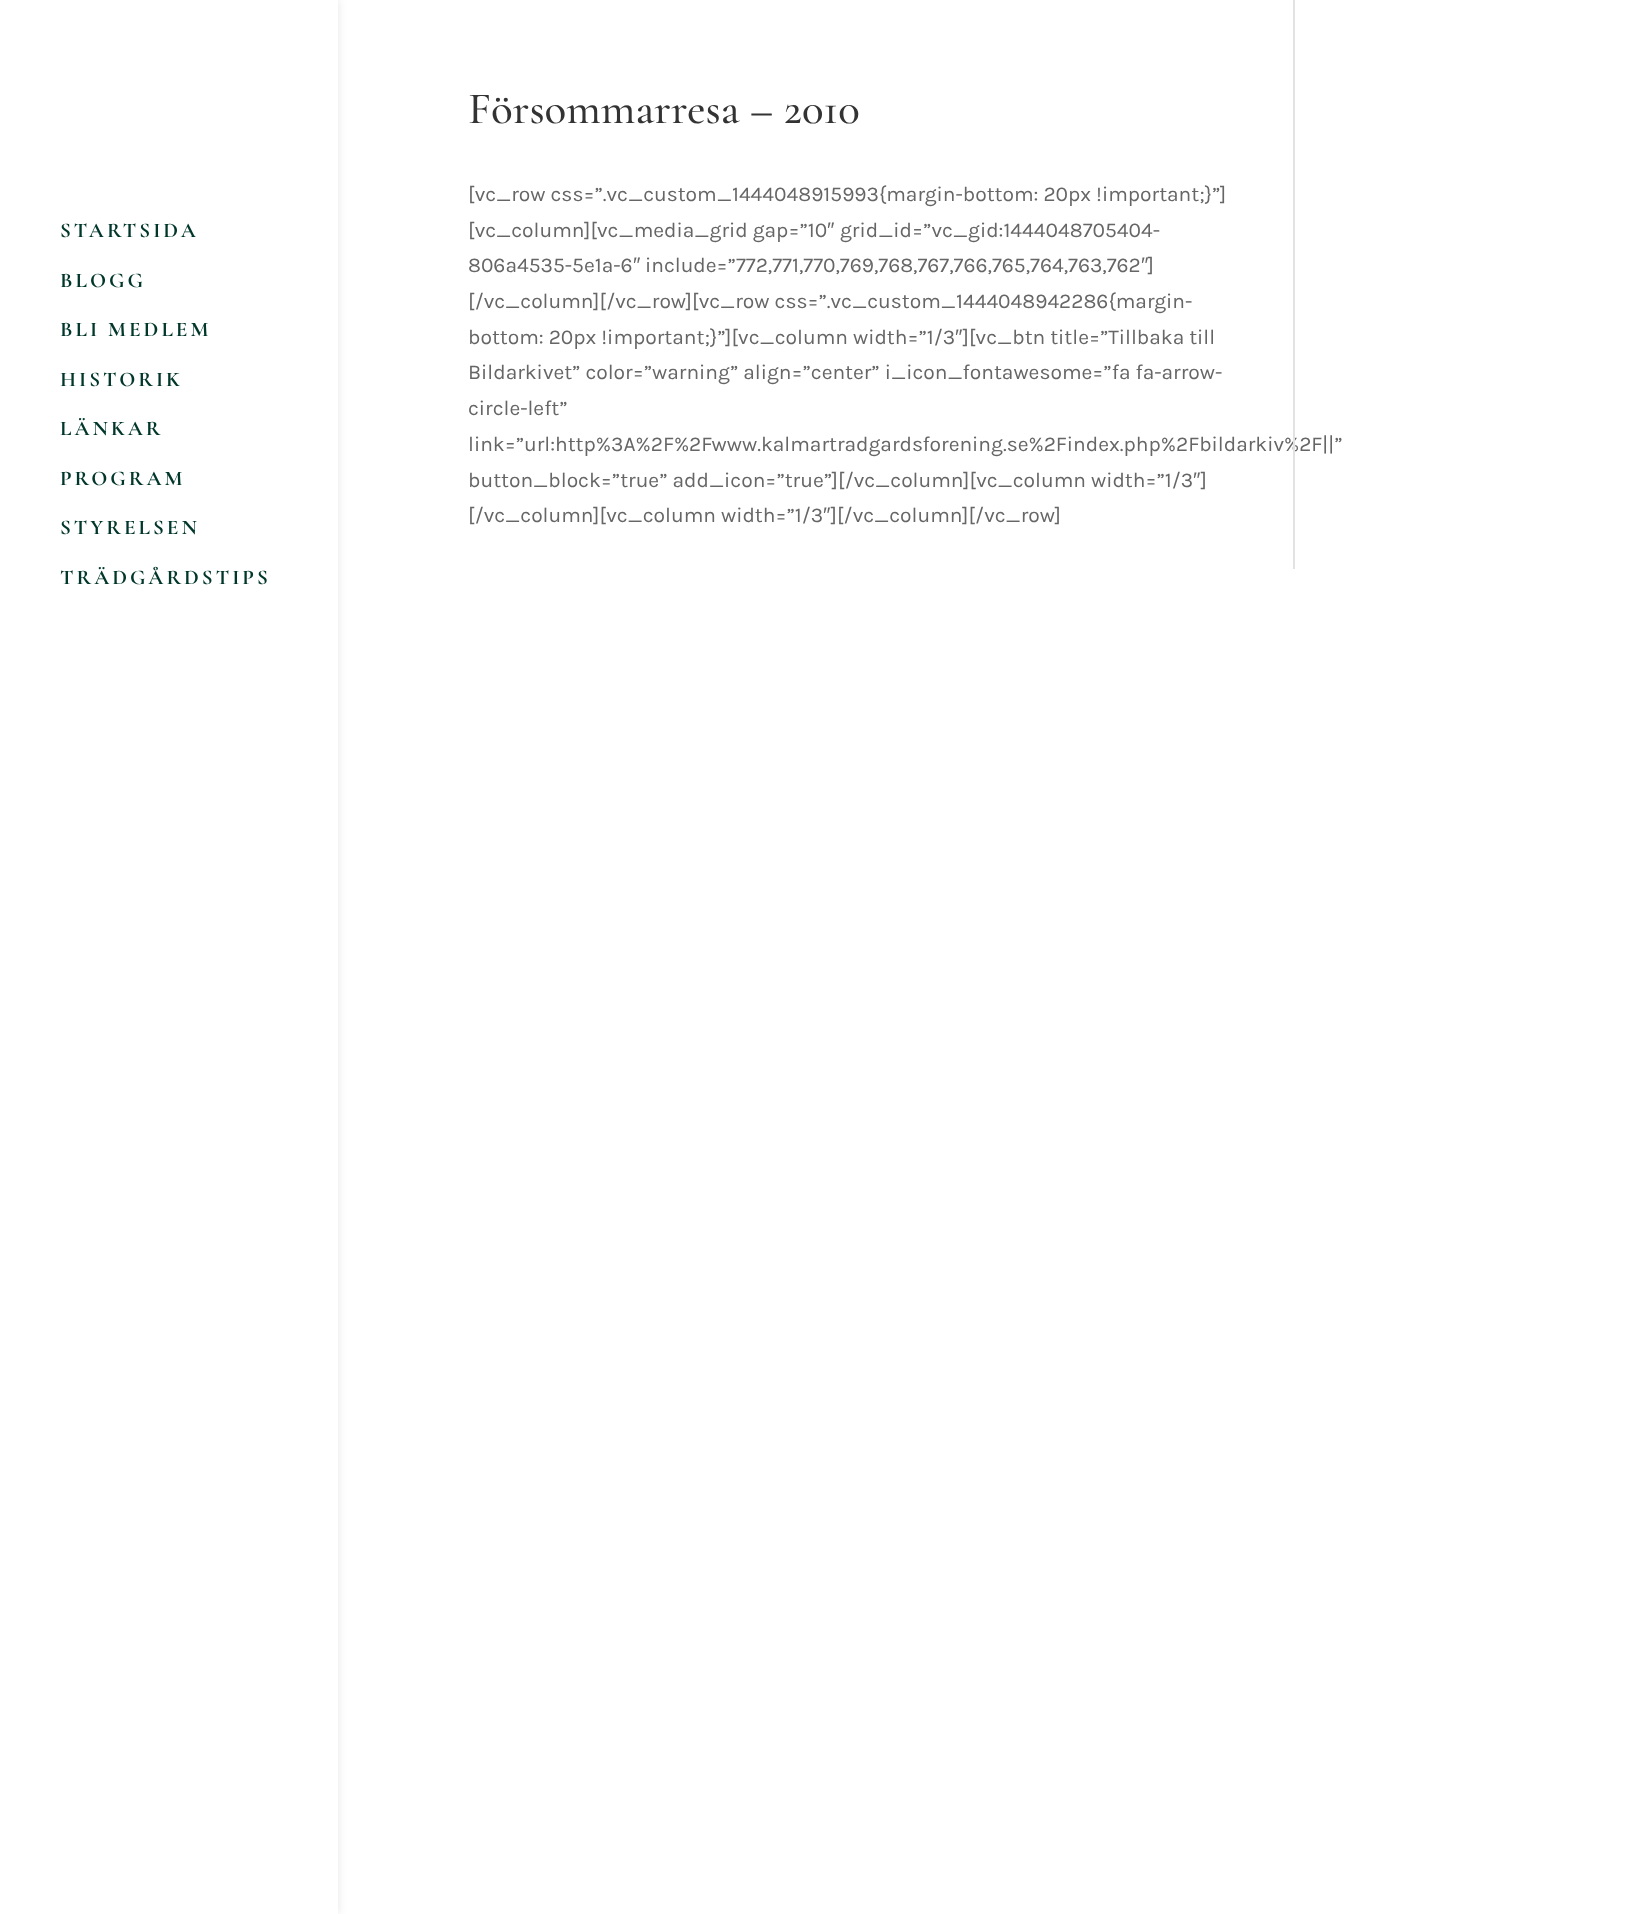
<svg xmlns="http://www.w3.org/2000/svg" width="1642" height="1914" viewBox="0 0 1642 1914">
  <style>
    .t1 { font: bold 21px Cormorant Garamond; letter-spacing: 3px; fill: #00372a; }
    .t2 { font: 21px Karla; fill: #666; }
    .t3 { font: 500 45px Cormorant Garamond; fill: #333; }
    .t4 { font: 21px Liberation Sans; fill: #666; }
  </style>
  <rect width="100%" height="100%" fill="#fff"/>
  <rect x="0" y="0" width="338" height="1914" fill="#0000001a" filter="blur(5px)"/>
  <rect x="0" y="0" width="338" height="1914" fill="#fff"/>
  <text x="60" y="237" class="t1">STARTSIDA</text>
  <text x="60" y="287" class="t1">BLOGG</text>
  <text x="60" y="336" class="t1">BLI MEDLEM</text>
  <text x="60" y="386" class="t1">HISTORIK</text>
  <text x="60" y="435" class="t1">LÄNKAR</text>
  <text x="60" y="485" class="t1">PROGRAM</text>
  <text x="60" y="534" class="t1">STYRELSEN</text>
  <text x="60" y="584" class="t1">TRÄDGÅRDSTIPS</text>
  <text x="468" y="451" class="t2">link=”url:http%3A%2F%2Fwww.kalmartradgardsforening.se%2Findex.php%2Fbildarkiv%2F||”</text>
  <rect x="1293" y="0" width="2" height="569" fill="#e2e2e2"/>
  <text x="468" y="123" class="t3">Försommarresa – 2010</text>
  <text x="468" y="201" class="t2">[vc_row css=”.vc_custom_1444048915993{margin-bottom: 20px !important;}”]</text>
  <text x="468" y="237" class="t2">[vc_column][vc_media_grid gap=”10</text>
  <text x="827" y="237" class="t4">″</text>
  <text x="840" y="237" class="t2">grid_id=”vc_gid:1444048705404-</text>
  <text x="468" y="272" class="t2">806a4535-5e1a-6</text>
  <text x="633" y="272" class="t4">″</text>
  <text x="645" y="272" class="t2">include=”772,771,770,769,768,767,766,765,764,763,762</text>
  <text x="1141" y="272" class="t4">″</text>
  <text x="1148" y="272" class="t2">]</text>
  <text x="468" y="308" class="t2">[/vc_column][/vc_row][vc_row css=”.vc_custom_1444048942286{margin-</text>
  <text x="468" y="344" class="t2">bottom: 20px !important;}”][vc_column width=”1/3</text>
  <text x="955" y="344" class="t4">″</text>
  <text x="963" y="344" class="t2">][vc_btn title=”Tillbaka till</text>
  <text x="468" y="379" class="t2">Bildarkivet” color=”warning” align=”center” i_icon_fontawesome=”fa fa-arrow-</text>
  <text x="468" y="415" class="t2">circle-left”</text>
  <text x="468" y="487" class="t2">button_block=”true” add_icon=”true”][/vc_column][vc_column width=”1/3</text>
  <text x="1193" y="487" class="t4">″</text>
  <text x="1201" y="487" class="t2">]</text>
  <text x="468" y="522" class="t2">[/vc_column][vc_column width=”1/3</text>
  <text x="823" y="522" class="t4">″</text>
  <text x="831" y="522" class="t2">][/vc_column][/vc_row]</text>
</svg>
